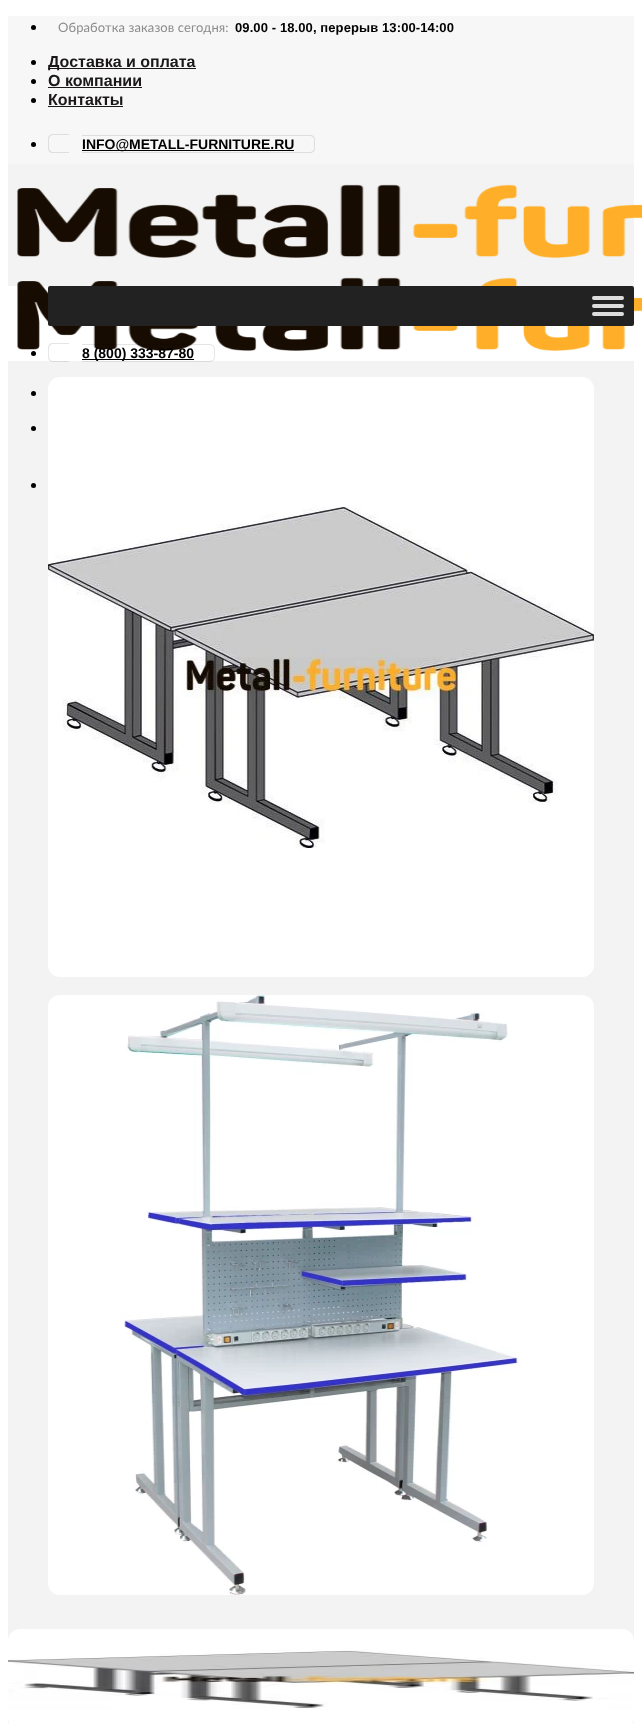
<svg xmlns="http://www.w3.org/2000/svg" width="642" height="1723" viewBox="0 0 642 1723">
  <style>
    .t1 { font: 13px Lato; letter-spacing: 0.1px; fill: #8c8c8c; }
    .t2 { font: bold 13px Liberation Sans; letter-spacing: 0.1px; fill: #000; }
    .t3 { font: bold 16px Liberation Sans; fill: #1a1818; }
    .t4 { font: bold 14px Liberation Sans; fill: #000; }
  </style>
  <rect width="100%" height="100%" fill="#fff"/>
  <rect x="8" y="164" width="626" height="1559" fill="#f3f3f3"/>
  <rect x="8" y="16" width="626" height="148" fill="#f7f7f7"/>
  <circle cx="33.5" cy="27.5" r="2.5" fill="#000"/>
  <text x="58" y="32" class="t1">Обработка заказов сегодня:</text>
  <text x="235" y="32" class="t2">09.00 - 18.00, перерыв 13:00-14:00</text>
  <circle cx="33.5" cy="62.5" r="2.5" fill="#000"/>
  <rect x="48" y="68" width="148" height="1" fill="#1a1818"/>
  <text x="48" y="67" class="t3">Доставка и оплата</text>
  <circle cx="33.5" cy="81.5" r="2.5" fill="#000"/>
  <text x="48" y="86" class="t3">О компании</text>
  <rect x="48" y="87" width="94" height="1" fill="#1a1818"/>
  <circle cx="33.5" cy="100.5" r="2.5" fill="#000"/>
  <text x="48" y="105" class="t3">Контакты</text>
  <rect x="48" y="106" width="75" height="1" fill="#1a1818"/>
  <circle cx="33.5" cy="144.5" r="2.5" fill="#000"/>
  <path d="M82 135H310C313 135 315 137 315 140V148C315 151 313 153 310 153H82ZM82 136H310C312 136 314 138 314 140V148C314 150 312 152 310 152H82Z" fill="#dedede" fill-rule="evenodd"/>
  <rect x="82" y="150" width="212" height="1" fill="#000"/>
  <text x="82" y="149" class="t4">INFO@METALL-FURNITURE.RU</text>
  <path d="M53 134H69V153H53C50 153 48 151 48 148V139C48 136 50 134 53 134ZM53 135H69V152H53C51 152 49 150 49 148V139C49 137 51 135 53 135Z" fill="#dedede" fill-rule="evenodd"/>
  <image x="17" y="184" width="625" height="74" href="images/1.png"/>
  <rect x="8" y="286" width="626" height="75" fill="#fff"/>
  <image x="17" y="277" width="625" height="74" href="images/2.png"/>
  <circle cx="33.5" cy="393.5" r="2.5" fill="#000"/>
  <circle cx="33.5" cy="428.5" r="2.5" fill="#000"/>
  <circle cx="33.5" cy="485.5" r="2.5" fill="#000"/>
  <rect x="48" y="286" width="586" height="40" rx="2" fill="#222"/>
  <rect x="592" y="296" width="32" height="4" rx="2" fill="#ddd"/>
  <rect x="592" y="304" width="32" height="4" rx="2" fill="#ddd"/>
  <rect x="592" y="312" width="32" height="4" rx="2" fill="#ddd"/>
  <circle cx="33.5" cy="353.5" r="2.5" fill="#000"/>
  <rect x="82" y="359" width="112" height="1" fill="#000"/>
  <text x="82" y="358" class="t4">8 (800) 333-87-80</text>
  <path d="M53 343H69V362H53C50 362 48 360 48 357V348C48 345 50 343 53 343ZM53 344H69V361H53C51 361 49 359 49 357V348C49 346 51 344 53 344Z" fill="#0000001a" fill-rule="evenodd"/>
  <rect x="82" y="344" width="112" height="1" fill="#0000001a"/>
  <rect x="82" y="361" width="112" height="1" fill="#dbdbdb"/>
  <path d="M194 344H207.5C215 344 215 346 215 353C215 360 215 362 207.5 362H194ZM194 345H207.5C214.5 345 214 347 214 353C214 359 214.5 361 207.5 361H194Z" fill="#0000001a" fill-rule="evenodd"/>
  <image x="48" y="377" width="546" height="600" href="images/3.png"/>
  <image x="48" y="995" width="546" height="600" href="images/4.png"/>
  <image x="8" y="1629" width="626" height="94" href="images/5.png"/>
</svg>
